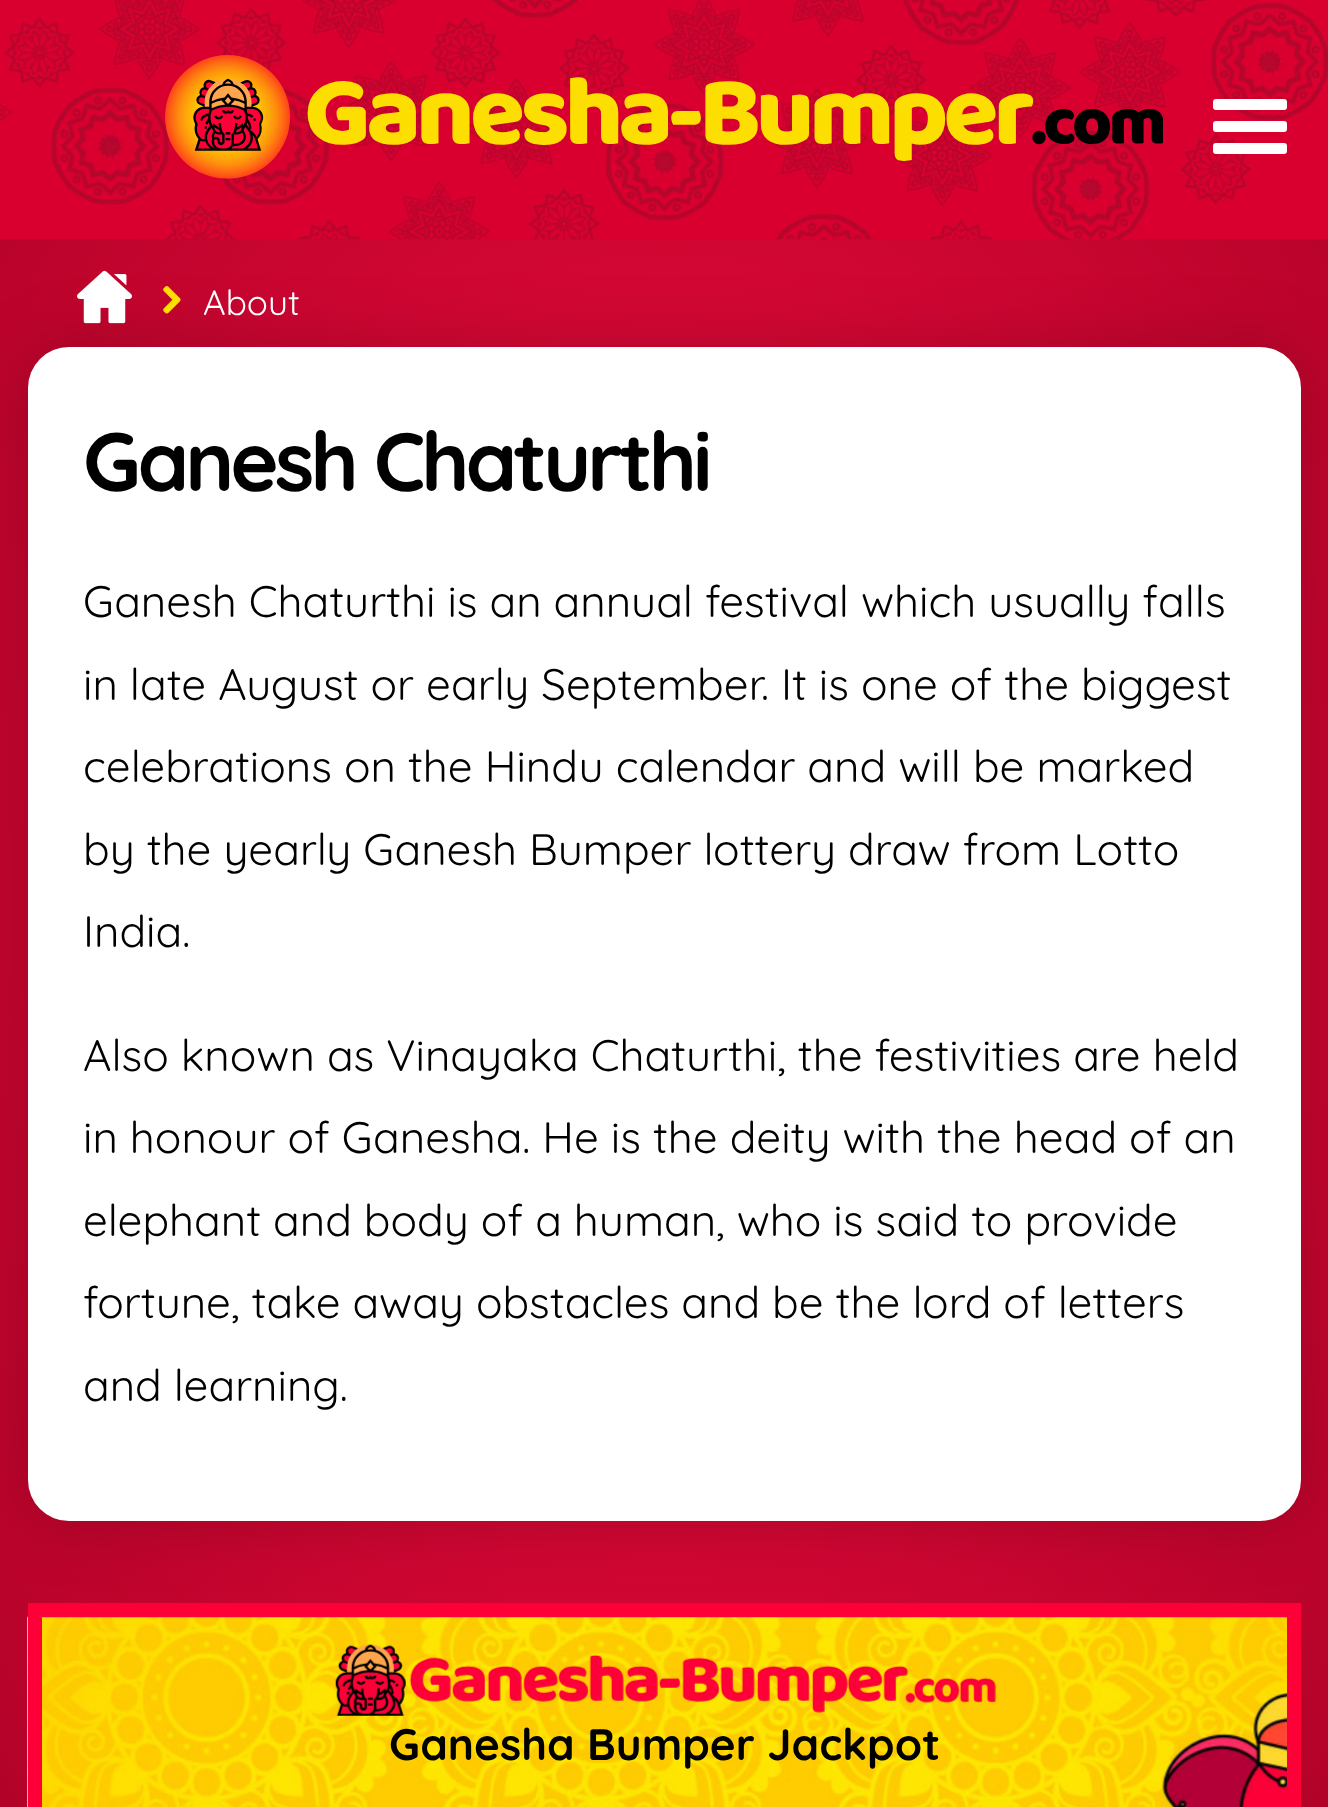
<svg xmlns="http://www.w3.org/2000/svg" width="1328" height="1807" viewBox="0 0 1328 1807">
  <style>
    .t1 { font: 35px Quicksand; fill: #fff; }
    .t2 { font: bold 82.5px Quicksand; letter-spacing: -4.1px; fill: #000; }
    .t3 { font: 44px Quicksand; fill: #000; }
    .t4 { font: bold 44px Quicksand; fill: #000; }
  </style>
  <defs>
    <radialGradient id="g1" gradientUnits="userSpaceOnUse" cx="0" cy="0" r="1" gradientTransform="matrix(939 0 0 1280 664 905)"><stop offset="0" stop-color="#f20c3e"/><stop offset="1" stop-color="#b20228"/></radialGradient>
  </defs>
  <rect width="100%" height="100%" fill="#fff"/>
  <rect x="0" y="239" width="1328" height="1568" fill="url(#g1)"/>
  <image x="0" y="0" width="1328" height="240" href="images/1.png"/>
  <image x="165" y="55" width="998" height="124" href="images/2.png"/>
  <rect x="1213" y="99" width="74" height="11" rx="3" fill="#fff"/>
  <rect x="1213" y="121" width="74" height="11" rx="3" fill="#fff"/>
  <rect x="1213" y="143" width="74" height="11" rx="3" fill="#fff"/>
  <rect x="28" y="347" width="1273" height="1174" rx="41" fill="#00000033" filter="blur(34.5px)"/>
  <image x="77" y="270" width="55" height="54" href="images/3.png"/>
  <image x="163" y="286" width="18" height="28" href="images/4.png"/>
  <text x="203" y="315" class="t1">About</text>
  <rect x="28" y="347" width="1273" height="1174" rx="41" fill="#fff"/>
  <text x="83" y="491" class="t2">Ganesh Chaturthi</text>
  <text x="83" y="617" class="t3">Ganesh Chaturthi is an annual festival which usually falls</text>
  <text x="83" y="700" class="t3">in late August or early September. It is one of the biggest</text>
  <text x="83" y="782" class="t3">celebrations on the Hindu calendar and will be marked</text>
  <text x="83" y="865" class="t3">by the yearly Ganesh Bumper lottery draw from Lotto</text>
  <text x="83" y="947" class="t3">India.</text>
  <text x="83" y="1071" class="t3">Also known as Vinayaka Chaturthi, the festivities are held</text>
  <text x="83" y="1153" class="t3">in honour of Ganesha. He is the deity with the head of an</text>
  <text x="83" y="1236" class="t3">elephant and body of a human, who is said to provide</text>
  <text x="83" y="1318" class="t3">fortune, take away obstacles and be the lord of letters</text>
  <text x="83" y="1401" class="t3">and learning.</text>
  <image x="27" y="1616" width="1260" height="191" href="images/5.png"/>
  <rect x="35" y="1610" width="1259" height="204" fill="none" stroke="#fd0037" stroke-width="14"/>
  <image x="335" y="1644" width="661" height="72" href="images/6.png"/>
  <text x="389" y="1760" class="t4">Ganesha Bumper Jackpot</text>
</svg>
